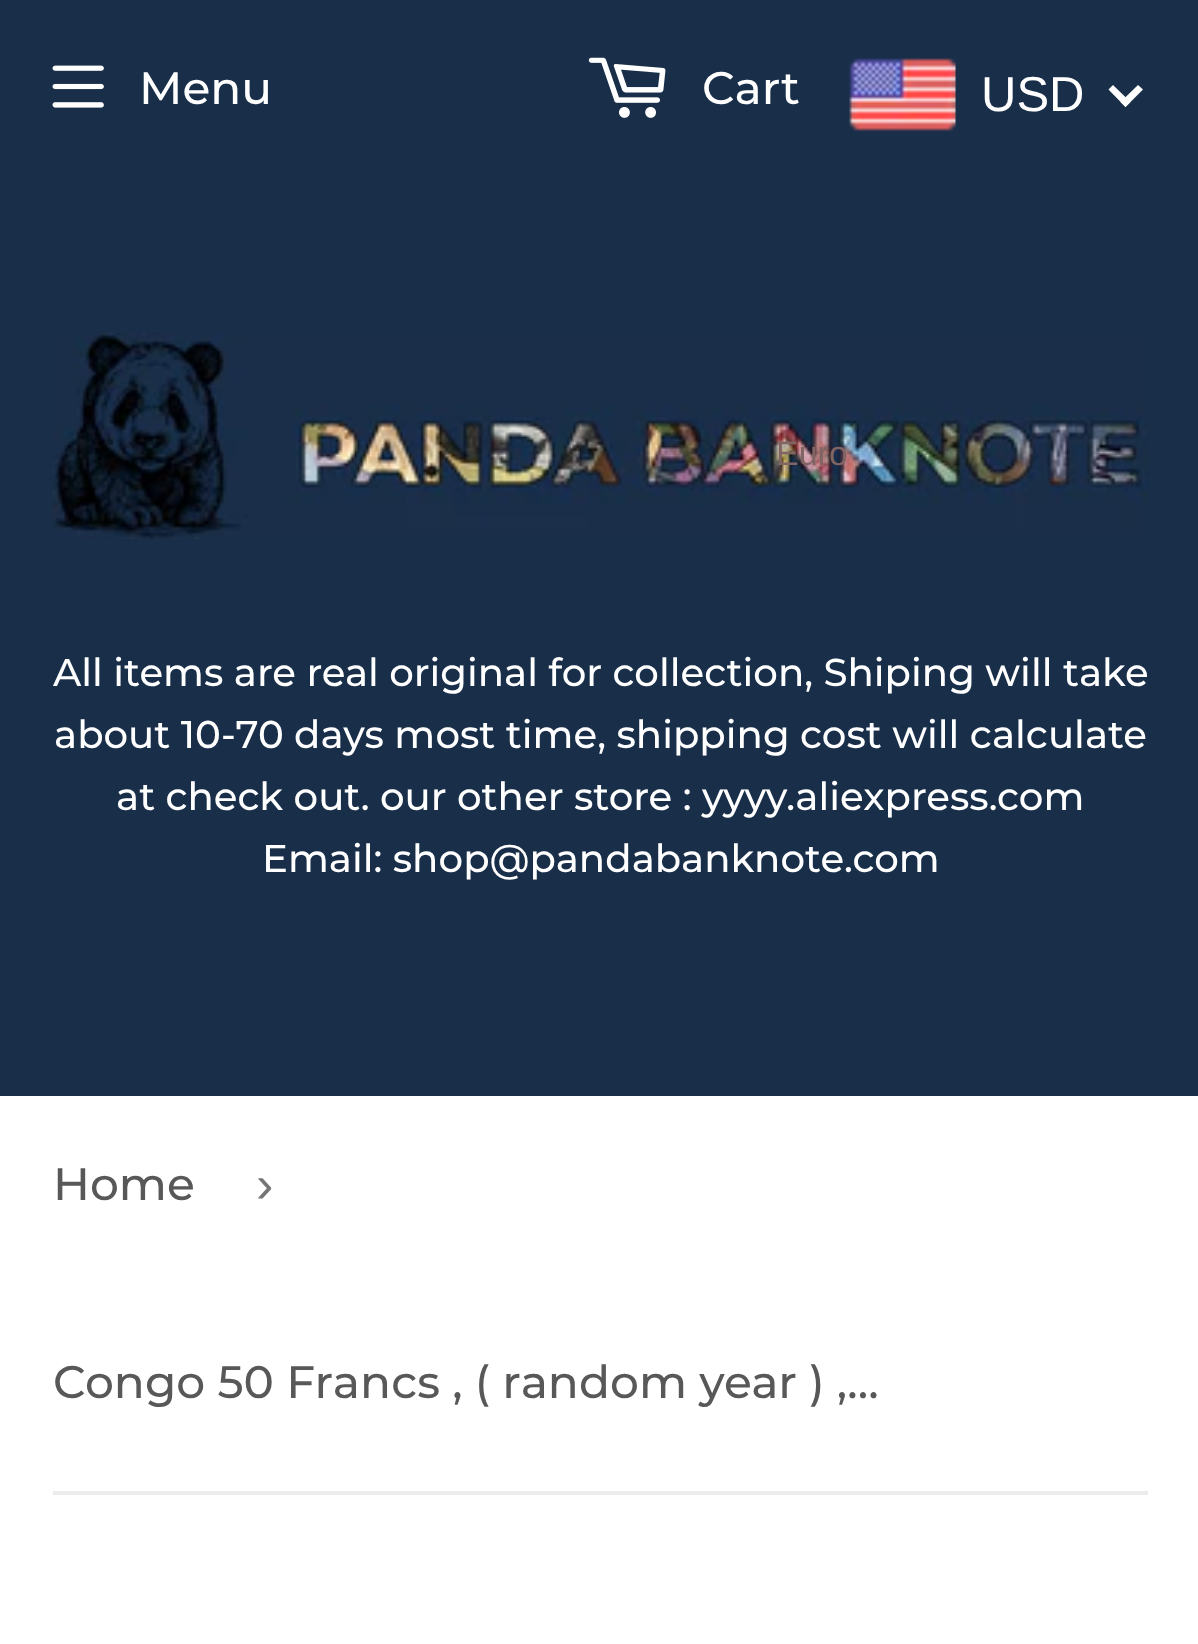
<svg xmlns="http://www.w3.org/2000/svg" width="1198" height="1644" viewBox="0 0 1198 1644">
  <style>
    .t1 { font: 500 45.5px Montserrat; fill: #fff; }
    .t2 { font: 49px Liberation Sans; fill: #fff; }
    .t3 { font: 34px Liberation Sans; fill: #806564; }
    .t4 { font: 500 38.7px Montserrat; fill: #fff; }
    .t5 { font: 500 45.5px Montserrat; fill: #585858; }
    .t6 { font: 52px Liberation Sans; fill: #767676; }
  </style>
  <rect width="100%" height="100%" fill="#fff"/>
  <rect x="0" y="0" width="1198" height="1096" fill="#182e49"/>
  <image x="52" y="65" width="52" height="43" href="images/1.png"/>
  <text x="139" y="104" class="t1">Menu</text>
  <image x="588" y="57" width="78" height="61" href="images/2.png"/>
  <text x="702" y="104" class="t1">Cart</text>
  <image x="849" y="58" width="107" height="73" href="images/3.png"/>
  <text x="981" y="111" class="t2">USD</text>
  <path d="M1138 85L1143 89.5L1125.5 107L1120.5 102Z" fill="#fff"/>
  <path d="M1113 85L1130.5 102L1125.5 107L1108.5 89.5Z" fill="#fff"/>
  <image x="52" y="332" width="1096" height="207" href="images/4.png"/>
  <text x="776" y="465" class="t3">Euro</text>
  <text x="53" y="686" class="t4">All items are real original for collection, Shiping will take</text>
  <text x="54" y="748" class="t4">about 10-70 days most time, shipping cost will calculate</text>
  <text x="116" y="810" class="t4">at check out. our other store : yyyy.aliexpress.com</text>
  <text x="262" y="872" class="t4">Email: shop@pandabanknote.com</text>
  <rect x="53" y="1491" width="1095" height="4" fill="#ececec"/>
  <text x="53" y="1200" class="t5">Home</text>
  <text x="256" y="1202" class="t6">›</text>
  <text x="53" y="1398" class="t5">Congo 50 Francs , ( random year ) ,…</text>
</svg>
